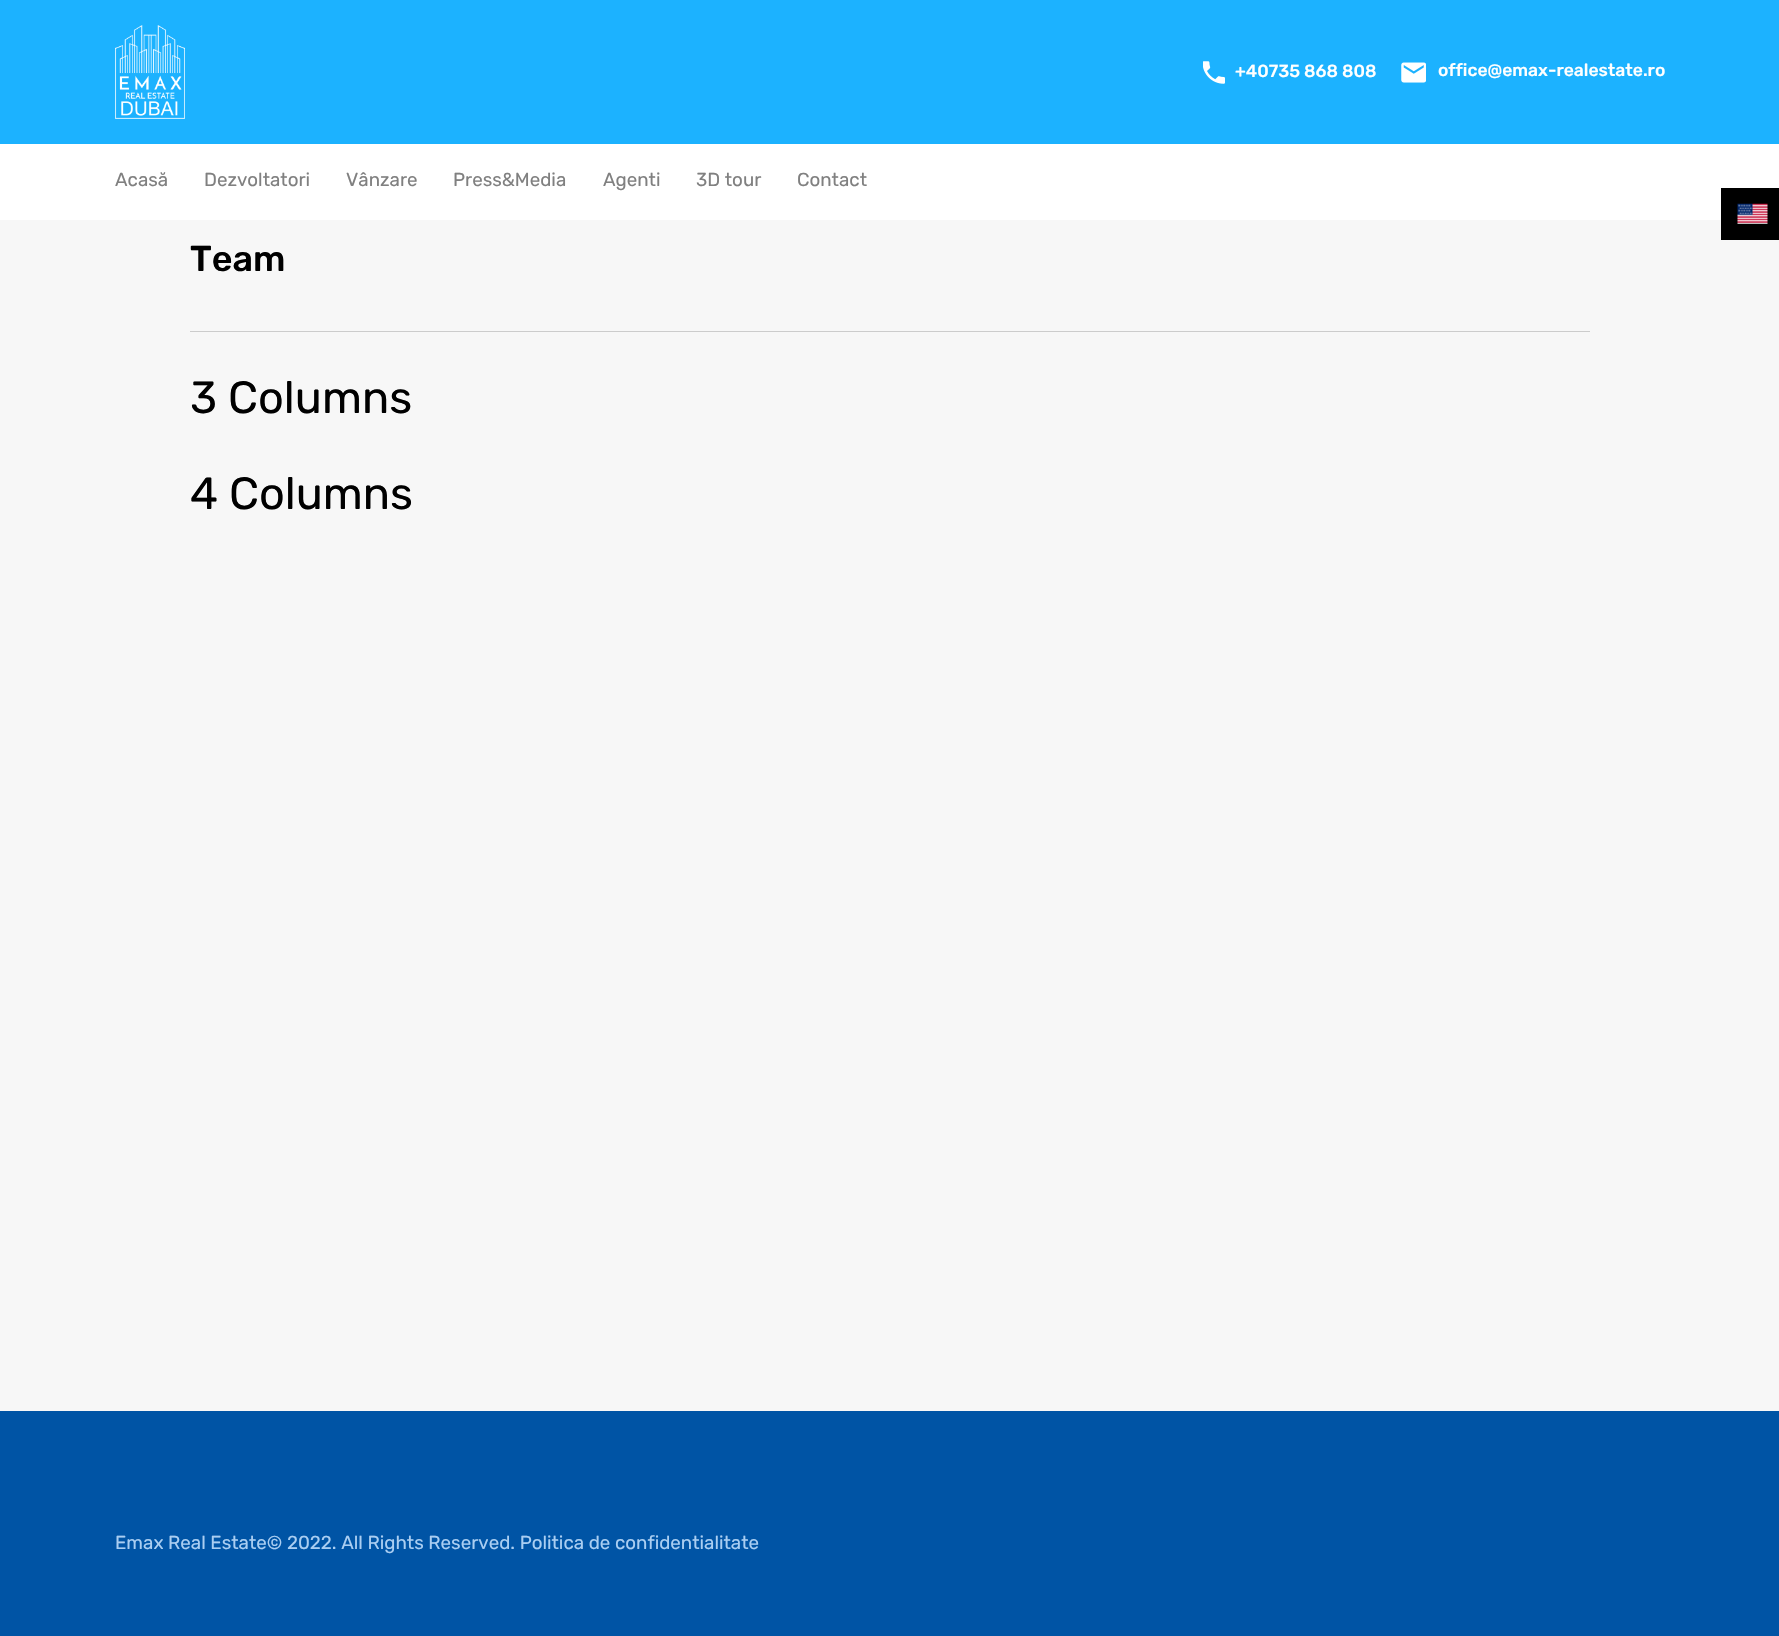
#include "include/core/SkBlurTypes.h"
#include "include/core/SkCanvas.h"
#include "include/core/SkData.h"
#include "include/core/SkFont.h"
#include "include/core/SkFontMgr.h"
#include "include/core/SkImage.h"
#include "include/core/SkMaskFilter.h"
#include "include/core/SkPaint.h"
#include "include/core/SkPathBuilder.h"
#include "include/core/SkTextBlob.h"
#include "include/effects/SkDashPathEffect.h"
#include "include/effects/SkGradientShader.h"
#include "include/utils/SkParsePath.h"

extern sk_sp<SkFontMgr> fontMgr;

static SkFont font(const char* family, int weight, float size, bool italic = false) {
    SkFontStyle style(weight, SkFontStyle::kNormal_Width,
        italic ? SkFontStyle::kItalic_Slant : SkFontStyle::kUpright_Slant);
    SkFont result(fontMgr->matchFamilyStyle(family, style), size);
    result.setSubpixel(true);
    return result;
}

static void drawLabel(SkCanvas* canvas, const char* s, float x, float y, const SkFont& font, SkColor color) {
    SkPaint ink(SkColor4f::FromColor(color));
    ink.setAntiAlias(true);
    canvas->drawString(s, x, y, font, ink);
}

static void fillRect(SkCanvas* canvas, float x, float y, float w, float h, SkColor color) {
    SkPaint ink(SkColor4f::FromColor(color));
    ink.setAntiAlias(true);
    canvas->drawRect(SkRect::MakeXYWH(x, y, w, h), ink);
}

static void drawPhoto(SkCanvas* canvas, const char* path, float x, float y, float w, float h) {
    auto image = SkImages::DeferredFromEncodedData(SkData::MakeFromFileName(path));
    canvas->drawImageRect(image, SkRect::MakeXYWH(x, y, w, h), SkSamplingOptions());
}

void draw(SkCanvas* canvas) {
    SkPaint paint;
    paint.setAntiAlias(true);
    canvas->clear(0xFFF7F7F7);
    fillRect(canvas, 0, 0, 1779, 144, 0xFF1CB2FF);
    drawPhoto(canvas, "assets/img1.png", 115, 25, 70, 94);
    drawPhoto(canvas, "assets/img2.png", 1203, 61, 22, 23);
    SkFont font1 = font("Rubik", 500, 17.5f);
    drawLabel(canvas, "+40735 868 808", 1235, 77, font1, 0xFFFFFFFF);
    drawPhoto(canvas, "assets/img3.png", 1401, 62, 25, 21);
    drawLabel(canvas, "office@emax-realestate.ro", 1438, 76, font1, 0xFFFFFFFF);
    fillRect(canvas, 0, 144, 1779, 76, 0xFFFFFFFF);
    SkFont font2 = font("Rubik", 400, 18.75f);
    drawLabel(canvas, "Acasă", 115, 186, font2, 0xFF808080);
    drawLabel(canvas, "Dezvoltatori", 204, 186, font2, 0xFF808080);
    drawLabel(canvas, "Vânzare", 346, 186, font2, 0xFF808080);
    drawLabel(canvas, "Press&Media", 453, 186, font2, 0xFF808080);
    drawLabel(canvas, "Agenti", 603, 186, font2, 0xFF808080);
    drawLabel(canvas, "3D tour", 696, 186, font2, 0xFF808080);
    drawLabel(canvas, "Contact", 797, 186, font2, 0xFF808080);
    SkFont font3 = font("Rubik", 500, 36);
    drawLabel(canvas, "Team", 190, 271, font3, 0xFF000000);
    fillRect(canvas, 190, 331, 1400, 1, 0xFFCCCCCC);
    SkFont font4 = font("Rubik", 400, 45);
    drawLabel(canvas, "3 Columns", 190, 413, font4, 0xFF000000);
    drawLabel(canvas, "4 Columns", 190, 509, font4, 0xFF000000);
    fillRect(canvas, 0, 1411, 1779, 225, 0xFF0054A5);
    drawLabel(canvas, "Emax Real Estate© 2022. All Rights Reserved. Politica de confidentialitate", 115, 1549, font2, 0xFFAACEF2);
    fillRect(canvas, 1721, 188, 58, 52, 0xFF000000);
    drawPhoto(canvas, "assets/img4.png", 1737, 203, 31, 21);
}
